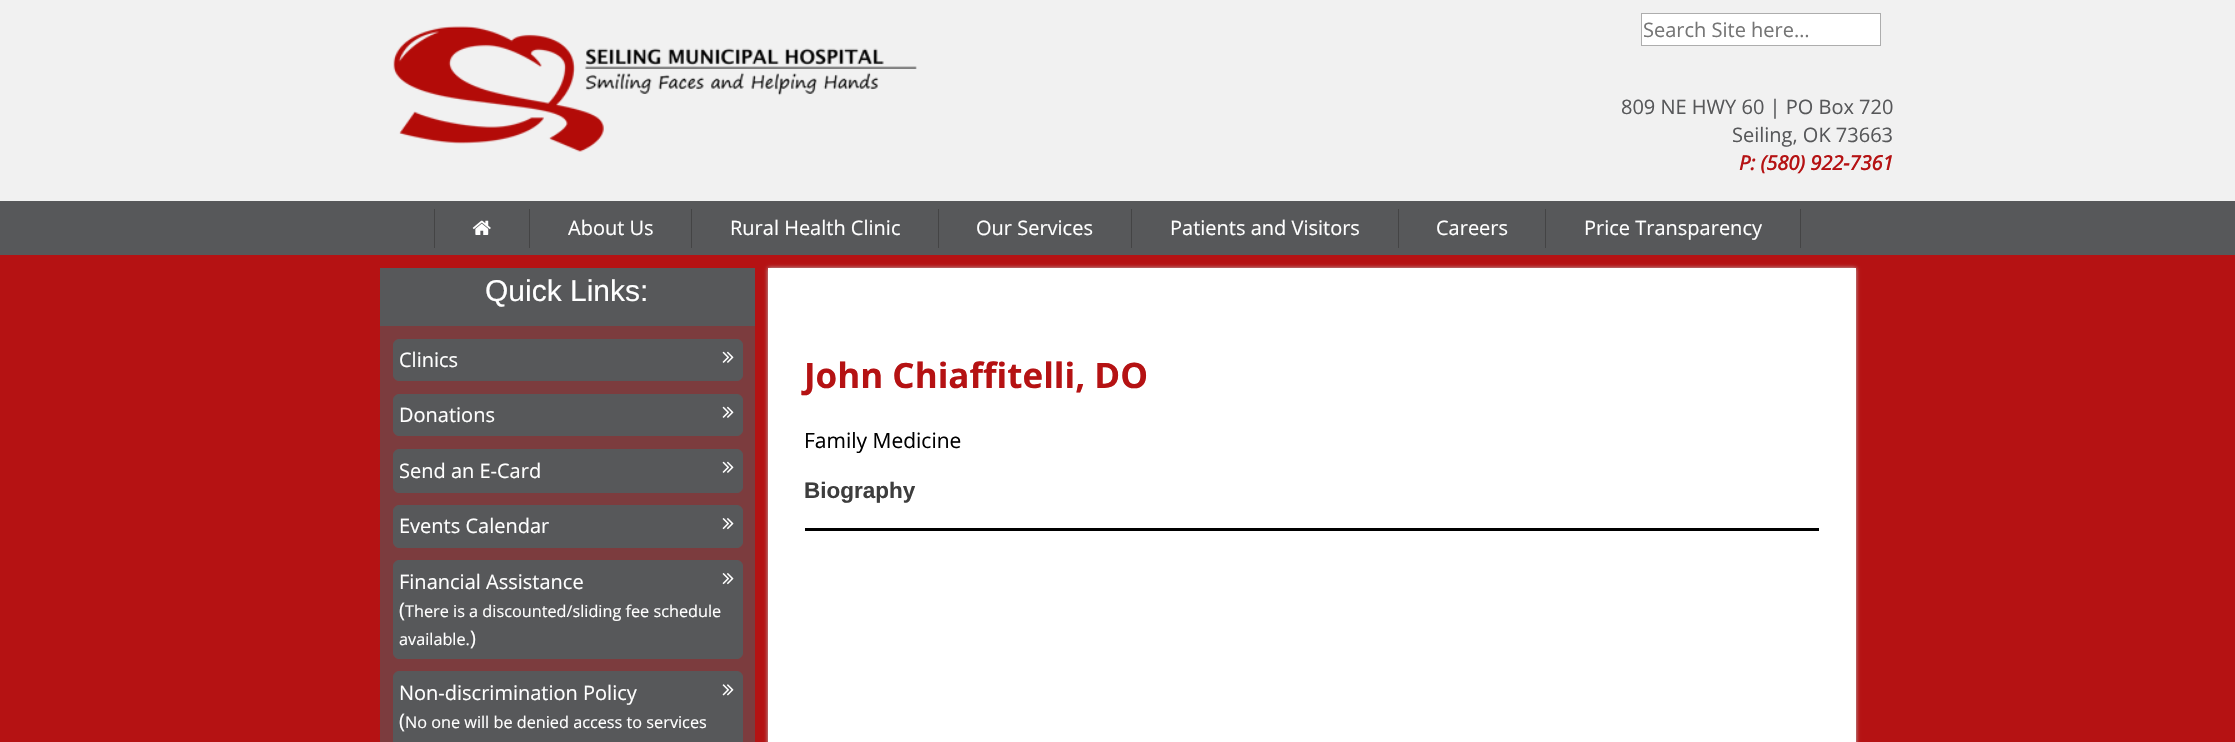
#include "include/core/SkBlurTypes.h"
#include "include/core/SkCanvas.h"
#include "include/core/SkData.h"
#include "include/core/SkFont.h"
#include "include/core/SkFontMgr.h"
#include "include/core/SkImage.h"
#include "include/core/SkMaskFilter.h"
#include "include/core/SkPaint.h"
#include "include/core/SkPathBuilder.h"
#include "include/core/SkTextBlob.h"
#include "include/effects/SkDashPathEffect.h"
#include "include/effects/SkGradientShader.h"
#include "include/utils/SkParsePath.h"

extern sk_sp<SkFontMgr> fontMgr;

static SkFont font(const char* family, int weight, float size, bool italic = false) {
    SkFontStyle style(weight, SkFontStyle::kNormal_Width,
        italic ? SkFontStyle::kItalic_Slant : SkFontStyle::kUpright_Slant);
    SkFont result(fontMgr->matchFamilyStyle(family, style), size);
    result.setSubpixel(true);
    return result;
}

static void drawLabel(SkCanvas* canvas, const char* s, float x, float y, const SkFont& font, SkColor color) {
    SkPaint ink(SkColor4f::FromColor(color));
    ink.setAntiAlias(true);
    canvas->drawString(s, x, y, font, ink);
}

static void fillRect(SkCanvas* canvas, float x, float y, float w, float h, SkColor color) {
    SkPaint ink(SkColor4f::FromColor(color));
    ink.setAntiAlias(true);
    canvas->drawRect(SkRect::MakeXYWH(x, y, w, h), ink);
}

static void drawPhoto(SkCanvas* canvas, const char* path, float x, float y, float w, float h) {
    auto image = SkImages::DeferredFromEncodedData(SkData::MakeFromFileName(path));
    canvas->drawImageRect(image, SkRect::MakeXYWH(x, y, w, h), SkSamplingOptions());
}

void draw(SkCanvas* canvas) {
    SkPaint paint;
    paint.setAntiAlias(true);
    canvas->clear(0xFFB51213);
    fillRect(canvas, 0, 0, 2235, 201, 0xFFF1F1F1);
    drawPhoto(canvas, "assets/img1.png", 393, 26, 524, 126);
    paint.setColor(0xFFFFFFFF);
    canvas->drawRect(SkRect::MakeXYWH(1641.5f, 13.5f, 239, 32), paint);
    paint.setStroke(true);
    paint.setStrokeWidth(1);
    paint.setColor(0xFFADADAD);
    canvas->drawRect(SkRect::MakeXYWH(1641.5f, 13.5f, 239, 32), paint);
    SkFont font1 = font("Open Sans", 400, 20);
    drawLabel(canvas, "Search Site here…", 1643, 37, font1, 0xFF757575);
    drawLabel(canvas, "809 NE HWY 60 | PO Box 720", 1621, 114, font1, 0xFF57585A);
    drawLabel(canvas, "Seiling, OK 73663", 1732, 142, font1, 0xFF57585A);
    SkFont font2 = font("Open Sans", 700, 20, true);
    drawLabel(canvas, "P: (580) 922-7361", 1739, 170, font2, 0xFFB51213);
    fillRect(canvas, 0, 201, 2235, 54, 0xFF57585A);
    fillRect(canvas, 434, 209, 1, 39, 0xFF444445);
    drawPhoto(canvas, "assets/img2.png", 472, 220, 19, 15);
    fillRect(canvas, 529, 209, 1, 39, 0xFF444445);
    drawLabel(canvas, "About Us", 568, 235, font1, 0xFFFFFFFF);
    fillRect(canvas, 691, 209, 1, 39, 0xFF444445);
    drawLabel(canvas, "Rural Health Clinic", 730, 235, font1, 0xFFFFFFFF);
    fillRect(canvas, 938, 209, 1, 39, 0xFF444445);
    drawLabel(canvas, "Our Services", 976, 235, font1, 0xFFFFFFFF);
    fillRect(canvas, 1131, 209, 1, 39, 0xFF444445);
    drawLabel(canvas, "Patients and Visitors", 1170, 235, font1, 0xFFFFFFFF);
    fillRect(canvas, 1398, 209, 1, 39, 0xFF444445);
    drawLabel(canvas, "Careers", 1436, 235, font1, 0xFFFFFFFF);
    fillRect(canvas, 1800, 209, 1, 39, 0xFF444445);
    fillRect(canvas, 1545, 209, 1, 39, 0xFF444445);
    drawLabel(canvas, "Price Transparency", 1584, 235, font1, 0xFFFFFFFF);
    fillRect(canvas, 380, 326, 375, 416, 0xFF7C3C3E);
    fillRect(canvas, 380, 268, 375, 58, 0xFF57585A);
    SkFont font3 = font("Liberation Sans", 400, 30);
    drawLabel(canvas, "Quick Links:", 485, 301, font3, 0xFFFFFFFF);
    paint.setStroke(false);
    paint.setColor(0xFF57585A);
    canvas->drawRoundRect(SkRect::MakeXYWH(393.5f, 339.5f, 349, 41), 5.5f, 5.5f, paint);
    paint.setStroke(true);
    canvas->drawRoundRect(SkRect::MakeXYWH(393.5f, 339.5f, 349, 41), 5.5f, 5.5f, paint);
    drawLabel(canvas, "Clinics", 399, 367, font1, 0xFFFFFFFF);
    drawPhoto(canvas, "assets/img3.png", 722, 351, 12, 12);
    paint.setStroke(false);
    canvas->drawRoundRect(SkRect::MakeXYWH(393.5f, 394.5f, 349, 41), 5.5f, 5.5f, paint);
    paint.setStroke(true);
    canvas->drawRoundRect(SkRect::MakeXYWH(393.5f, 394.5f, 349, 41), 5.5f, 5.5f, paint);
    drawLabel(canvas, "Donations", 399, 422, font1, 0xFFFFFFFF);
    drawPhoto(canvas, "assets/img3.png", 722, 406, 12, 12);
    paint.setStroke(false);
    canvas->drawRoundRect(SkRect::MakeXYWH(393.5f, 449.5f, 349, 43), 5.5f, 5.5f, paint);
    paint.setStroke(true);
    canvas->drawRoundRect(SkRect::MakeXYWH(393.5f, 449.5f, 349, 43), 5.5f, 5.5f, paint);
    drawLabel(canvas, "Send an E-Card", 399, 478, font1, 0xFFFFFFFF);
    drawPhoto(canvas, "assets/img3.png", 722, 461, 12, 12);
    paint.setStroke(false);
    canvas->drawRoundRect(SkRect::MakeXYWH(393.5f, 505.5f, 349, 42), 5.5f, 5.5f, paint);
    paint.setStroke(true);
    canvas->drawRoundRect(SkRect::MakeXYWH(393.5f, 505.5f, 349, 42), 5.5f, 5.5f, paint);
    drawLabel(canvas, "Events Calendar", 399, 533, font1, 0xFFFFFFFF);
    drawPhoto(canvas, "assets/img4.png", 722, 518, 12, 12);
    paint.setStroke(false);
    canvas->drawRoundRect(SkRect::MakeXYWH(393.5f, 560.5f, 349, 98), 5.5f, 5.5f, paint);
    paint.setStroke(true);
    canvas->drawRoundRect(SkRect::MakeXYWH(393.5f, 560.5f, 349, 98), 5.5f, 5.5f, paint);
    drawLabel(canvas, "Financial Assistance", 399, 589, font1, 0xFFFFFFFF);
    drawPhoto(canvas, "assets/img4.png", 722, 573, 12, 12);
    drawLabel(canvas, "(", 399, 617, font1, 0xFFFFFFFF);
    SkFont font4 = font("Open Sans", 400, 16.25f);
    drawLabel(canvas, "There is a discounted/sliding fee schedule", 405, 617, font4, 0xFFFFFFFF);
    drawLabel(canvas, "available.", 399, 645, font4, 0xFFFFFFFF);
    drawLabel(canvas, ")", 470, 645, font1, 0xFFFFFFFF);
    paint.setStroke(false);
    canvas->drawRoundRect(SkRect::MakeXYWH(393.5f, 671.5f, 349, 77), 5.5f, 5.5f, paint);
    paint.setStroke(true);
    canvas->drawRoundRect(SkRect::MakeXYWH(393.5f, 671.5f, 349, 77), 5.5f, 5.5f, paint);
    drawLabel(canvas, "Non-discrimination Policy", 399, 700, font1, 0xFFFFFFFF);
    drawPhoto(canvas, "assets/img5.png", 722, 684, 12, 12);
    drawLabel(canvas, "(", 399, 728, font1, 0xFFFFFFFF);
    drawLabel(canvas, "No one will be denied access to services", 405, 728, font4, 0xFFFFFFFF);
    paint.setStroke(false);
    paint.setColor(0xFFBBBEBF);
    paint.setMaskFilter(SkMaskFilter::MakeBlur(kNormal_SkBlurStyle, 2));
    canvas->drawRect(SkRect::MakeXYWH(768, 268, 1088, 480), paint);
    paint.setMaskFilter(nullptr);
    fillRect(canvas, 768, 268, 1088, 474, 0xFFFFFFFF);
    SkFont font5 = font("Open Sans", 700, 35);
    drawLabel(canvas, "John Chiaffitelli, DO", 804, 388, font5, 0xFFB51213);
    SkFont font6 = font("Open Sans", 400, 21);
    drawLabel(canvas, "Family Medicine", 804, 448, font6, 0xFF000000);
    SkFont font7 = font("Liberation Sans", 700, 22.5f);
    drawLabel(canvas, "Biography", 804, 498, font7, 0xFF3D3D3D);
    fillRect(canvas, 805, 528, 1014, 3, 0xFF000000);
}
